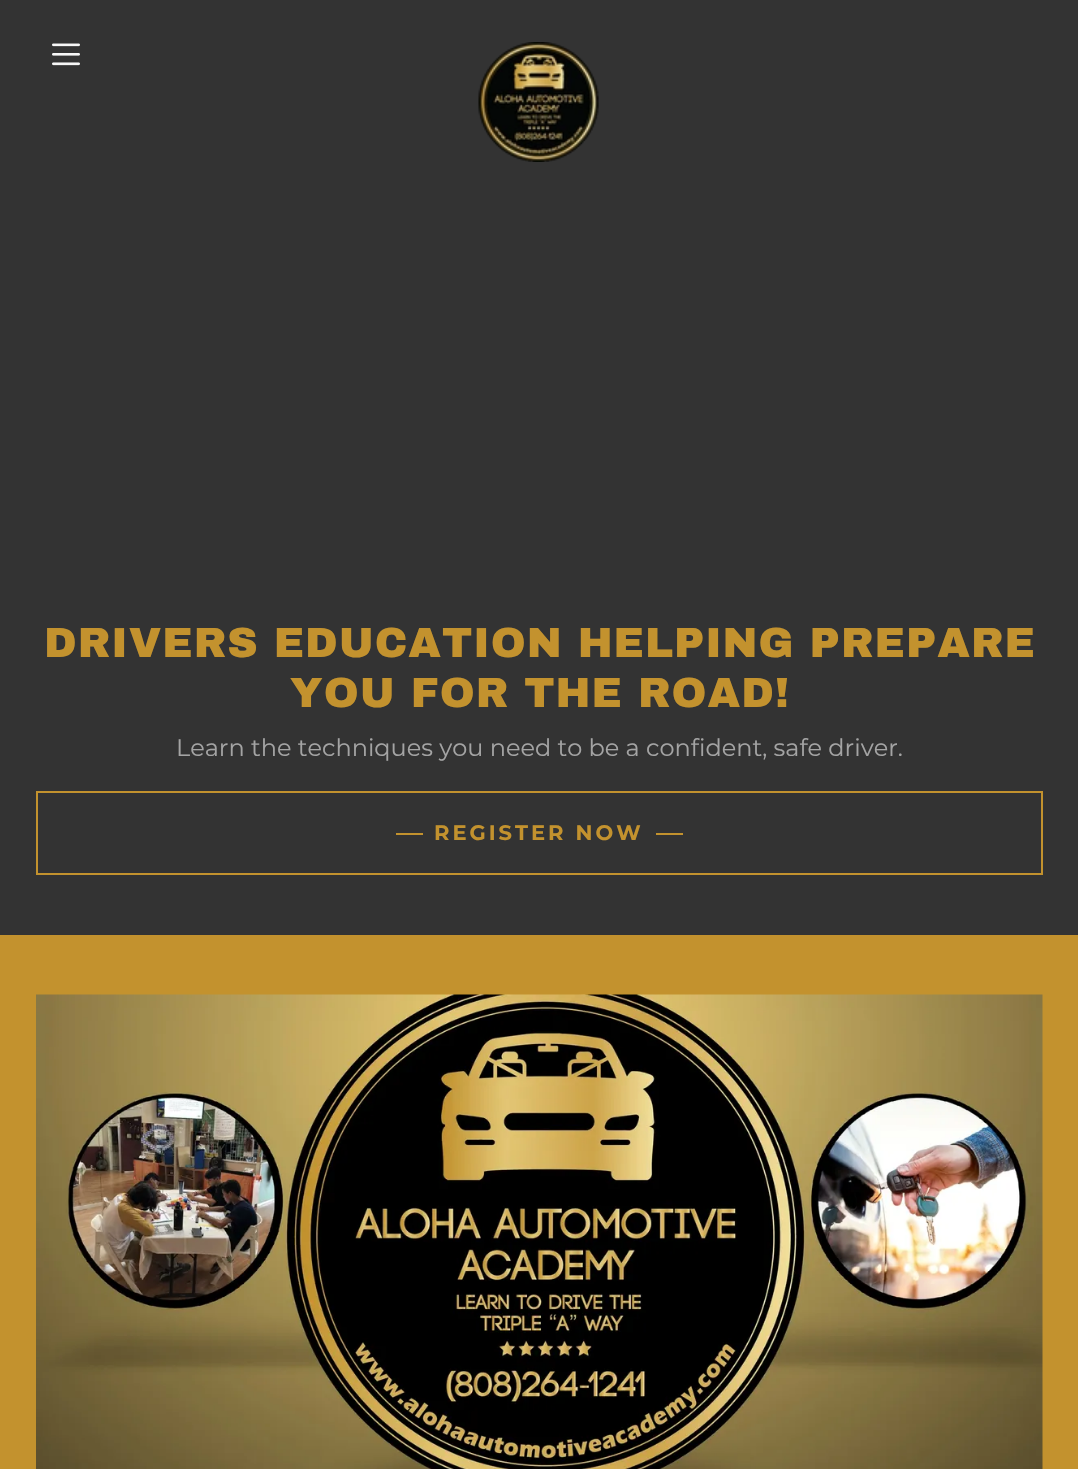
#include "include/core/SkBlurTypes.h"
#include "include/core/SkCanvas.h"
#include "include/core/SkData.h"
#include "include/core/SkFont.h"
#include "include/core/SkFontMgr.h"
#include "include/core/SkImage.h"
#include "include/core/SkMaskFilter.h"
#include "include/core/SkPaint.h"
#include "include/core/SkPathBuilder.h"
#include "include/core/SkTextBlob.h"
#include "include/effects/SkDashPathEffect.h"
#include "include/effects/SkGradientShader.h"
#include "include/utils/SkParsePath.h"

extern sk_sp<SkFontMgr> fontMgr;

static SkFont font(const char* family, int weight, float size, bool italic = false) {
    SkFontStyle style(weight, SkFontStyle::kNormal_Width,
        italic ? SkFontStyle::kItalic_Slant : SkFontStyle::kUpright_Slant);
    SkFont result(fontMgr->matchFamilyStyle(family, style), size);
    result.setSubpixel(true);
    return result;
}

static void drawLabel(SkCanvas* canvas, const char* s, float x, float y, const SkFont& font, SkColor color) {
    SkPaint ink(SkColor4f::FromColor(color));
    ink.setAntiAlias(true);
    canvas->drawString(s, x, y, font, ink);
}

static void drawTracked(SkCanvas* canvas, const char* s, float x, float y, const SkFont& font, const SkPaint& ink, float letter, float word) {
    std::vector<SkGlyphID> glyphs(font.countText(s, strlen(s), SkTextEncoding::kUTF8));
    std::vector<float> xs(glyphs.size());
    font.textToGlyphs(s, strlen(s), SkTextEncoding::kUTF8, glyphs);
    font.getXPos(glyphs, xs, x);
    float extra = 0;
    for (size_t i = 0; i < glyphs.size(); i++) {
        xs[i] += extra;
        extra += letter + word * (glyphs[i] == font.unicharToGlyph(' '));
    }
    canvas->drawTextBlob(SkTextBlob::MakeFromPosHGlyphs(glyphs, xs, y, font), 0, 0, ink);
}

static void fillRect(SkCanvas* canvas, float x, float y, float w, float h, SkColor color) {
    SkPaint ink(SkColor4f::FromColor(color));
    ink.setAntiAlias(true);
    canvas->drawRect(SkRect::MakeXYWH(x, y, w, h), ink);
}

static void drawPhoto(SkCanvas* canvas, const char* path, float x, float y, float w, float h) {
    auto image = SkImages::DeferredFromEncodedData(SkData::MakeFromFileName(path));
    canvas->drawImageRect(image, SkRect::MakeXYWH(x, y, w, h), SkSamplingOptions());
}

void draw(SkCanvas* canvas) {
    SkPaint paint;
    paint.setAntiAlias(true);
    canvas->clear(0xFF333333);
    drawPhoto(canvas, "assets/img1.png", 52, 43, 28, 23);
    drawPhoto(canvas, "assets/img2.png", 478, 42, 121, 120);
    SkFont font1 = font("Archivo Black", 900, 42);
    paint.setColor(0xFFC3922E);
    drawTracked(canvas, "DRIVERS EDUCATION HELPING PREPARE", 44, 657, font1, paint, 1, 0);
    drawTracked(canvas, "YOU FOR THE ROAD!", 290, 707, font1, paint, 1, 0);
    SkFont font2 = font("Montserrat", 400, 24);
    drawLabel(canvas, "Learn the techniques you need to be a confident, safe driver.", 176, 756, font2, 0xFFA4A4A4);
    paint.setStroke(true);
    paint.setStrokeWidth(2);
    canvas->drawRect(SkRect::MakeXYWH(37, 792, 1005, 82), paint);
    fillRect(canvas, 396, 833, 27, 2, 0xFFC3922E);
    SkFont font3 = font("Montserrat", 700, 21);
    paint.setStroke(false);
    drawTracked(canvas, "REGISTER NOW", 434, 840, font3, paint, 3, 0);
    fillRect(canvas, 656, 833, 27, 2, 0xFFC3922E);
    fillRect(canvas, 0, 935, 1078, 534, 0xFFC3922E);
    drawPhoto(canvas, "assets/img3.png", 36, 994, 1007, 475);
}
